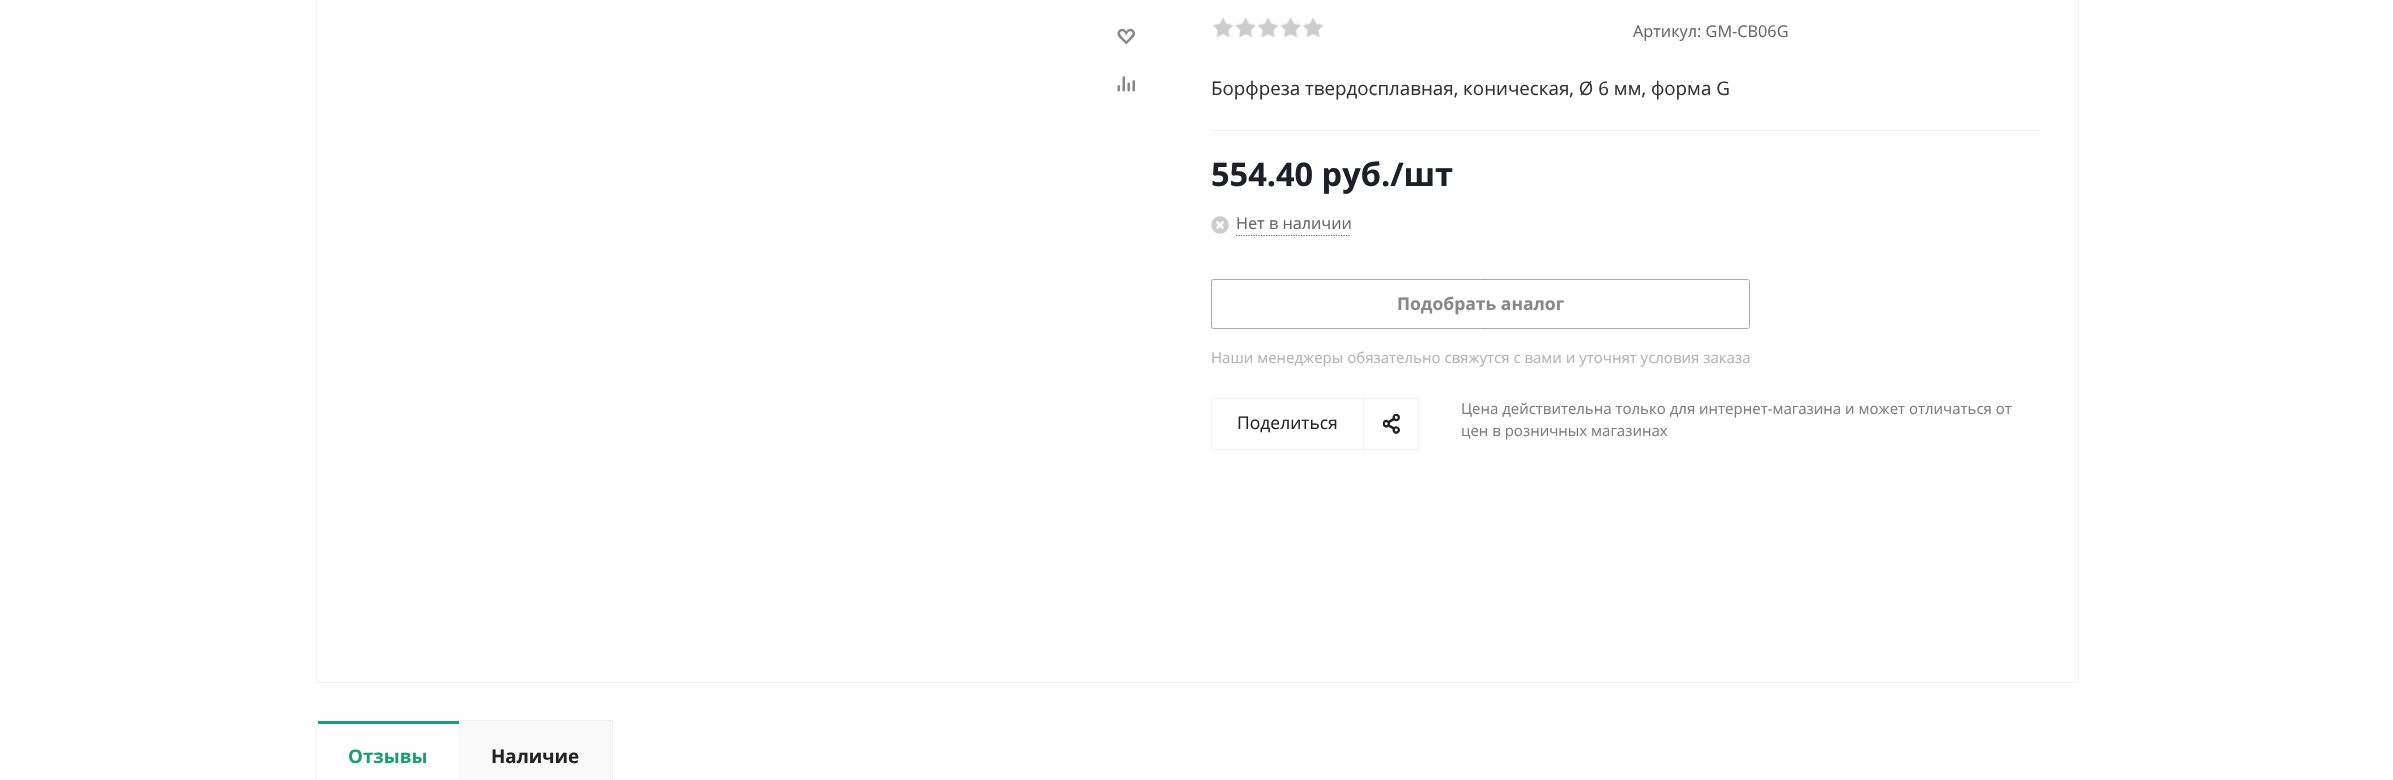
#include "include/core/SkBlurTypes.h"
#include "include/core/SkCanvas.h"
#include "include/core/SkData.h"
#include "include/core/SkFont.h"
#include "include/core/SkFontMgr.h"
#include "include/core/SkImage.h"
#include "include/core/SkMaskFilter.h"
#include "include/core/SkPaint.h"
#include "include/core/SkPathBuilder.h"
#include "include/core/SkTextBlob.h"
#include "include/effects/SkDashPathEffect.h"
#include "include/effects/SkGradientShader.h"
#include "include/utils/SkParsePath.h"

extern sk_sp<SkFontMgr> fontMgr;

static SkFont font(const char* family, int weight, float size, bool italic = false) {
    SkFontStyle style(weight, SkFontStyle::kNormal_Width,
        italic ? SkFontStyle::kItalic_Slant : SkFontStyle::kUpright_Slant);
    SkFont result(fontMgr->matchFamilyStyle(family, style), size);
    result.setSubpixel(true);
    return result;
}

static void drawLabel(SkCanvas* canvas, const char* s, float x, float y, const SkFont& font, SkColor color) {
    SkPaint ink(SkColor4f::FromColor(color));
    ink.setAntiAlias(true);
    canvas->drawString(s, x, y, font, ink);
}

static void fillRect(SkCanvas* canvas, float x, float y, float w, float h, SkColor color) {
    SkPaint ink(SkColor4f::FromColor(color));
    ink.setAntiAlias(true);
    canvas->drawRect(SkRect::MakeXYWH(x, y, w, h), ink);
}

static void drawPhoto(SkCanvas* canvas, const char* path, float x, float y, float w, float h) {
    auto image = SkImages::DeferredFromEncodedData(SkData::MakeFromFileName(path));
    canvas->drawImageRect(image, SkRect::MakeXYWH(x, y, w, h), SkSamplingOptions());
}

static SkPath parsePath(const char* data, bool evenOdd = false) {
    SkPath result = *SkParsePath::FromSVGString(data);
    if (evenOdd) result.setFillType(SkPathFillType::kEvenOdd);
    return result;
}

void draw(SkCanvas* canvas) {
    SkPaint paint;
    paint.setAntiAlias(true);
    canvas->clear(0xFFFFFFFF);
    paint.setStroke(true);
    paint.setStrokeWidth(1);
    paint.setColor(0xFFF2F2F2);
    canvas->drawRect(SkRect::MakeXYWH(316.5f, -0.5f, 1762, 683), paint);
    drawPhoto(canvas, "assets/img1.png", 1117, 28, 18, 17);
    drawPhoto(canvas, "assets/img2.png", 1117, 76, 18, 16);
    fillRect(canvas, 1211, 130, 829, 1, 0xFFF2F2F2);
    drawPhoto(canvas, "assets/img3.png", 1212, 17, 22, 21);
    drawPhoto(canvas, "assets/img4.png", 1235, 17, 21, 21);
    drawPhoto(canvas, "assets/img5.png", 1257, 17, 22, 21);
    drawPhoto(canvas, "assets/img6.png", 1280, 17, 21, 21);
    drawPhoto(canvas, "assets/img3.png", 1302, 17, 22, 21);
    SkFont font1 = font("Open Sans", 400, 16.25f);
    drawLabel(canvas, "Артикул: GM-CB06G", 1633, 37, font1, 0xFF666666);
    SkFont font2 = font("Open Sans", 400, 18.75f);
    drawLabel(canvas, "Борфреза твердосплавная, коническая, Ø 6 мм, форма G", 1211, 95, font2, 0xFF333333);
    SkFont font3 = font("Open Sans", 700, 32.5f);
    drawLabel(canvas, "554.40 руб./шт", 1211, 186, font3, 0xFF1D2029);
    drawPhoto(canvas, "assets/img7.png", 1211, 216, 18, 18);
    drawLabel(canvas, "Нет в наличии", 1236, 229, font1, 0xFF666666);
    paint.setStrokeWidth(1.2f);
    paint.setColor(0xFF666666);
    paint.setPathEffect(SkDashPathEffect::Make({{1.25f, 1.25f}}, 0));
    canvas->drawPath(parsePath("M1236 235.5H1351"), paint);
    paint.setPathEffect(nullptr);
    paint.setStrokeWidth(1);
    paint.setColor(0xFFAAAAAA);
    canvas->drawRoundRect(SkRect::MakeXYWH(1211.5f, 279.5f, 538, 49), 2, 2, paint);
    SkFont font4 = font("Open Sans", 700, 17.5f);
    drawLabel(canvas, "Подобрать аналог", 1397, 310, font4, 0xFF888888);
    SkFont font5 = font("Open Sans", 400, 15);
    drawLabel(canvas, "Наши менеджеры обязательно свяжутся с вами и уточнят условия заказа", 1211, 363, font5, 0xFFB3B3B3);
    fillRect(canvas, 1363, 398, 1, 52, 0xFFF2F2F2);
    drawPhoto(canvas, "assets/img8.png", 1383, 414, 17, 20);
    paint.setColor(0xFFF2F2F2);
    canvas->drawRoundRect(SkRect::MakeXYWH(1211.5f, 398.5f, 207, 51), 2, 2, paint);
    SkFont font6 = font("Open Sans", 400, 17.5f);
    drawLabel(canvas, "Поделиться", 1237, 429, font6, 0xFF222222);
    drawLabel(canvas, "Цена действительна только для интернет-магазина и может отличаться от", 1461, 414, font5, 0xFF7D7D7D);
    drawLabel(canvas, "цен в розничных магазинах", 1461, 436, font5, 0xFF7D7D7D);
    paint.setStroke(false);
    paint.setColor(0xFFF9F9FA);
    canvas->drawRect(SkRect::MakeXYWH(459.5f, 720.5f, 153, 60), paint);
    paint.setStroke(true);
    paint.setColor(0xFFF2F2F2);
    canvas->drawRect(SkRect::MakeXYWH(459.5f, 720.5f, 153, 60), paint);
    fillRect(canvas, 316, 720, 144, 1, 0xFFF5F5F5);
    fillRect(canvas, 459, 720, 1, 60, 0xFFF5F5F5);
    fillRect(canvas, 316, 720, 1, 60, 0xFFF5F5F5);
    fillRect(canvas, 318, 721, 141, 3, 0xFF1B9E77);
    SkFont font7 = font("Open Sans", 700, 18.75f);
    drawLabel(canvas, "Отзывы", 348, 763, font7, 0xFF1B9E77);
    drawLabel(canvas, "Наличие", 491, 763, font7, 0xFF222222);
}
